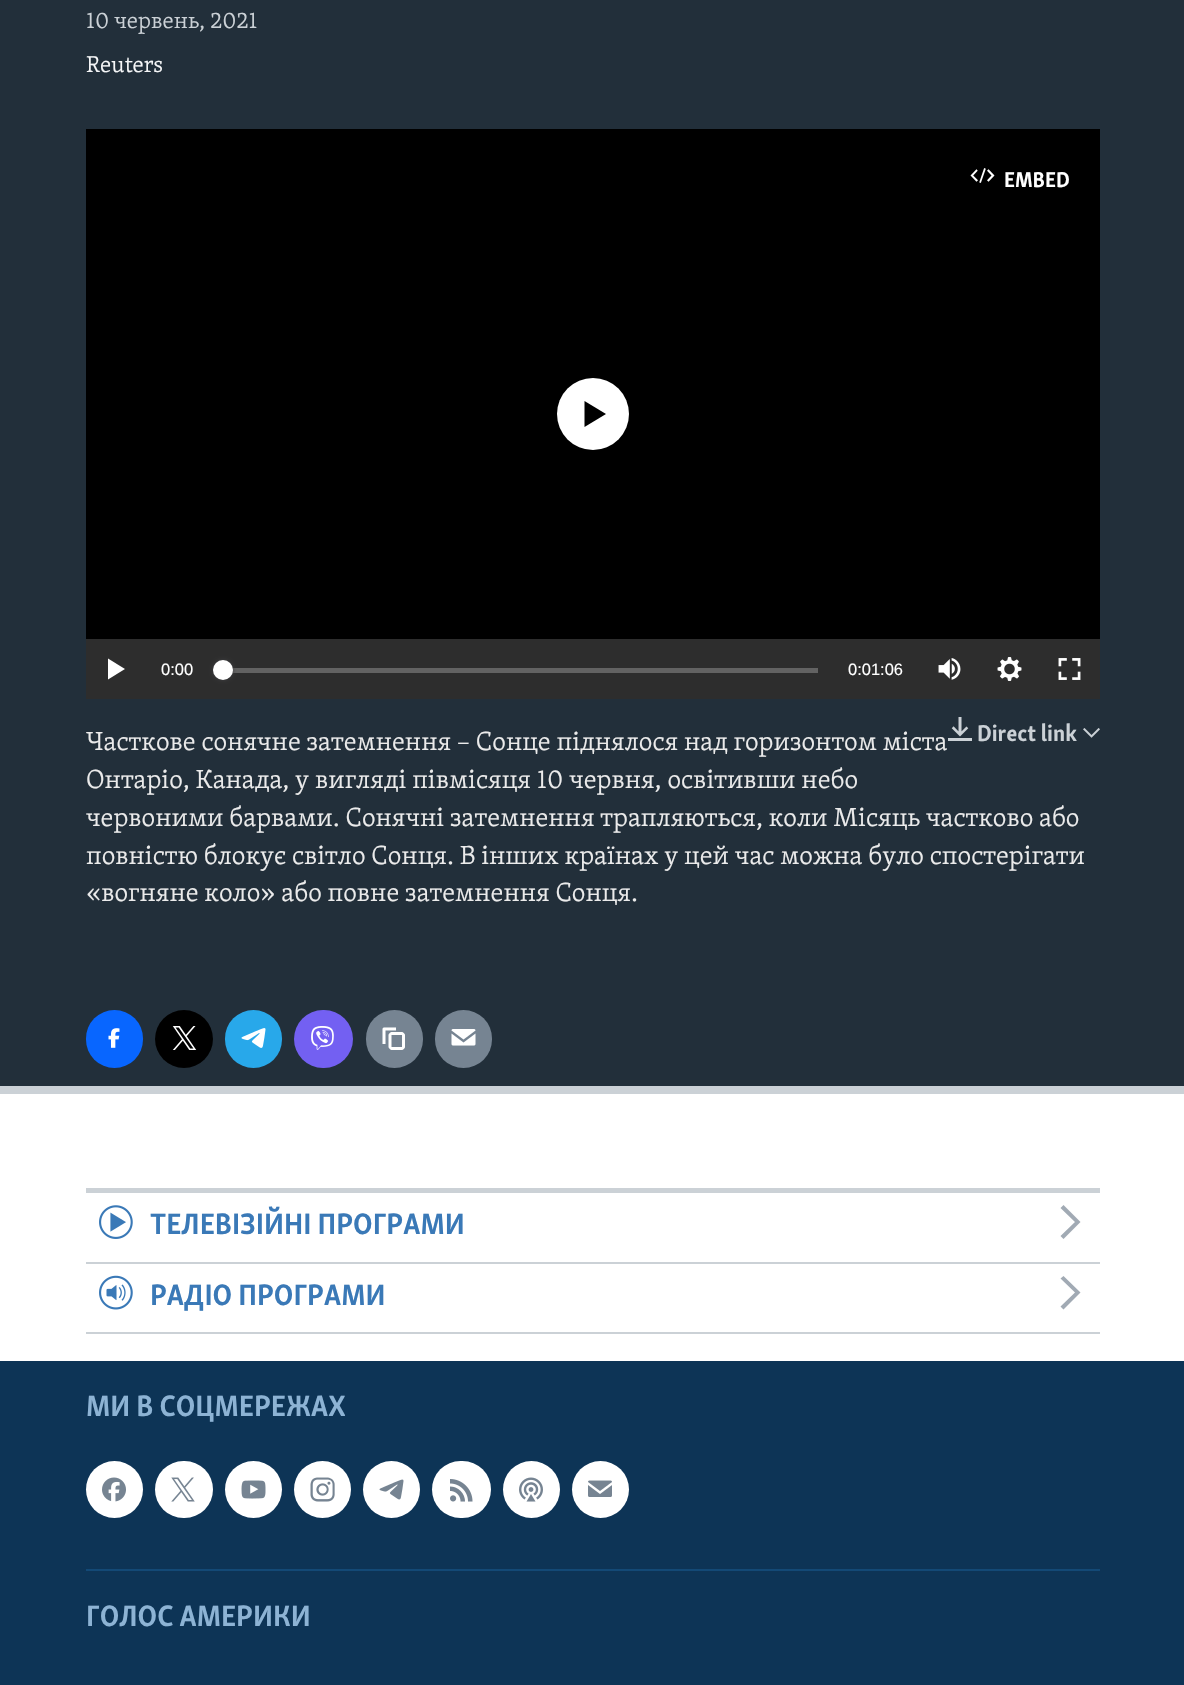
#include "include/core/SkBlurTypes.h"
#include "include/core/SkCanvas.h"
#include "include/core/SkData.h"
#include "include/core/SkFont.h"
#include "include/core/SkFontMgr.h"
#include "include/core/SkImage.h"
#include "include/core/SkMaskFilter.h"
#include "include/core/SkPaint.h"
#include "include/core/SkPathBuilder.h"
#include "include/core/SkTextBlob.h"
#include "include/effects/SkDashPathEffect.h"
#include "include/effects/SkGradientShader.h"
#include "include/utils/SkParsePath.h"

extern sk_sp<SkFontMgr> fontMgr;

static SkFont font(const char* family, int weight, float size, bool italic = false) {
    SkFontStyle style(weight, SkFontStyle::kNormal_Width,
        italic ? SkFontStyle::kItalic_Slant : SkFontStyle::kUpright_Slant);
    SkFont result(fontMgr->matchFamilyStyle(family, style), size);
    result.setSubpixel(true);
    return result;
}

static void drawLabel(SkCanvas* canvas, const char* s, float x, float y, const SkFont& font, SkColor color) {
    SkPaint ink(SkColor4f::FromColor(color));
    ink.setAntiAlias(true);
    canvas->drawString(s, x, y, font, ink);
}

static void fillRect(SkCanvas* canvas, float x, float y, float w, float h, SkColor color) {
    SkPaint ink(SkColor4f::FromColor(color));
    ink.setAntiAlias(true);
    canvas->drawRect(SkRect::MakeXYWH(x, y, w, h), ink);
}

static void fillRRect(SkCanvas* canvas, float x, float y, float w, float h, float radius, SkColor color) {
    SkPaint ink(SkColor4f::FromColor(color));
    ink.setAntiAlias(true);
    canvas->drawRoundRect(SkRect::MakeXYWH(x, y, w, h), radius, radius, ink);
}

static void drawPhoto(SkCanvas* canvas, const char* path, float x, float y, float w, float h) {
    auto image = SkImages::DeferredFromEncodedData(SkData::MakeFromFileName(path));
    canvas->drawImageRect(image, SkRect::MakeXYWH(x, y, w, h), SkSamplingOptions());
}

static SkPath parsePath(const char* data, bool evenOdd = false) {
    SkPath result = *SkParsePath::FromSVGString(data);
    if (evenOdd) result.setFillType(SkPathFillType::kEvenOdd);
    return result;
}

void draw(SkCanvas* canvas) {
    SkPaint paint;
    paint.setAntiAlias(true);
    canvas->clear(0xFFFFFFFF);
    fillRect(canvas, 0, 0, 1184, 1086, 0xFF222F3A);
    fillRect(canvas, 0, 1086, 1184, 8, 0xFFCBD1D6);
    SkFont font1 = font("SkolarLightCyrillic", 300, 23.5f);
    drawLabel(canvas, "10 червень, 2021", 86, 28, font1, 0xFFCBD1D6);
    drawLabel(canvas, "Reuters", 86, 72, font1, 0xFFF6F7F8);
    fillRect(canvas, 86, 129, 1014, 510, 0xFF000000);
    drawPhoto(canvas, "assets/img1.png", 970, 168, 25, 15);
    SkFont font2 = font("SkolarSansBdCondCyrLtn", 700, 22);
    drawLabel(canvas, "EMBED", 1004, 187, font2, 0xFFFFFFFF);
    paint.setColor(0xFFFFFFFF);
    canvas->drawCircle(593, 414, 36, paint);
    paint.setColor(0xFF000000);
    canvas->drawPath(parsePath("M584.5 427L606 414L584.5 401Z"), paint);
    fillRect(canvas, 86, 639, 1014, 60, 0xFF2D2D2D);
    paint.setColor(0xFFFFFFFF);
    canvas->drawPath(parsePath("M108 679.5L125 669L108 658.5Z"), paint);
    SkFont font3 = font("Liberation Sans", 400, 16.5f);
    drawLabel(canvas, "0:00", 161, 675, font3, 0xFFFFFFFF);
    fillRect(canvas, 232, 668, 586, 5, 0xFF626262);
    paint.setColor(0xFF414144);
    paint.setMaskFilter(SkMaskFilter::MakeBlur(kNormal_SkBlurStyle, 2));
    canvas->drawRoundRect(SkRect::MakeXYWH(213, 660, 20, 20), 10, 10, paint);
    paint.setMaskFilter(nullptr);
    paint.setColor(0xFFFFFFFF);
    canvas->drawCircle(223, 670, 10, paint);
    drawLabel(canvas, "0:01:06", 848, 675, font3, 0xFFFFFFFF);
    drawPhoto(canvas, "assets/img2.png", 938, 658, 23, 22);
    drawPhoto(canvas, "assets/img3.png", 997, 657, 25, 24);
    drawPhoto(canvas, "assets/img4.png", 1058, 658, 23, 22);
    drawPhoto(canvas, "assets/img5.png", 948, 717, 24, 24);
    SkFont font4 = font("SkolarSansBdCondCyrLtn", 700, 23.5f);
    drawLabel(canvas, "Direct link", 977, 741, font4, 0xFFCBD1D6);
    drawPhoto(canvas, "assets/img6.png", 1083, 728, 17, 10);
    SkFont font5 = font("SkolarLightCyrillic", 300, 27);
    drawLabel(canvas, "Часткове сонячне затемнення – Cонце піднялося над горизонтом міста", 86, 750, font5, 0xFFEBEBEB);
    drawLabel(canvas, "Онтаріо, Канада, у вигляді півмісяця 10 червня, освітивши небо", 86, 788, font5, 0xFFEBEBEB);
    drawLabel(canvas, "червоними барвами. Сонячні затемнення трапляються, коли Місяць частково або", 86, 826, font5, 0xFFEBEBEB);
    drawLabel(canvas, "повністю блокує світло Сонця. В інших країнах у цей час можна було спостерігати", 86, 864, font5, 0xFFEBEBEB);
    drawLabel(canvas, "«вогняне коло» або повне затемнення Сонця.", 86, 901, font5, 0xFFEBEBEB);
    fillRRect(canvas, 86, 1010, 57, 58, 28.5f, 0xFF0866FF);
    drawPhoto(canvas, "assets/img7.png", 108, 1028, 12, 20);
    paint.setColor(0xFF000000);
    canvas->drawCircle(184, 1039, 29, paint);
    drawPhoto(canvas, "assets/img8.png", 172, 1026, 25, 24);
    fillRRect(canvas, 225, 1010, 57, 58, 28.5f, 0xFF28A8EA);
    drawPhoto(canvas, "assets/img9.png", 241, 1028, 25, 20);
    fillRRect(canvas, 294, 1010, 59, 58, 29, 0xFF7360F2);
    drawPhoto(canvas, "assets/img10.png", 311, 1026, 23, 24);
    fillRRect(canvas, 366, 1010, 57, 58, 28.5f, 0xFF768492);
    drawPhoto(canvas, "assets/img11.png", 382, 1027, 23, 23);
    fillRRect(canvas, 435, 1010, 57, 58, 28.5f, 0xFF768492);
    drawPhoto(canvas, "assets/img12.png", 451, 1029, 25, 17);
    fillRect(canvas, 86, 1188, 1014, 5, 0xFFCBD1D6);
    fillRect(canvas, 86, 1262, 1014, 2, 0xFFCBD1D6);
    drawPhoto(canvas, "assets/img13.png", 99, 1205, 34, 34);
    SkFont font6 = font("SkolarSansBdCondCyrLtn", 700, 30.4f);
    drawLabel(canvas, "ТЕЛЕВІЗІЙНІ ПРОГРАМИ", 150, 1234, font6, 0xFF3A79B7);
    paint.setColor(0xFFA1AAB4);
    canvas->drawPath(parsePath("M1063.5 1239L1080.5 1222L1063.5 1205L1060.5 1208L1075 1222L1060.5 1236Z"), paint);
    fillRect(canvas, 86, 1332, 1014, 2, 0xFFCBD1D6);
    drawPhoto(canvas, "assets/img14.png", 99, 1275, 34, 35);
    drawLabel(canvas, "РАДІО ПРОГРАМИ", 150, 1305, font6, 0xFF3A79B7);
    canvas->drawPath(parsePath("M1063.5 1309.5L1080.5 1292.5L1063.5 1276L1060.5 1278.5L1075 1292.5L1060.5 1306.5Z"), paint);
    fillRect(canvas, 0, 1361, 1184, 324, 0xFF0D3456);
    drawLabel(canvas, "МИ В СОЦМЕРЕЖАХ", 86, 1416, font6, 0xFF8DB3D4);
    paint.setColor(0xFFFFFFFF);
    canvas->drawCircle(114.5f, 1489.5f, 28.5f, paint);
    drawPhoto(canvas, "assets/img15.png", 102, 1477, 24, 25);
    fillRRect(canvas, 155, 1461, 58, 57, 28.5f, 0xFFFFFFFF);
    drawPhoto(canvas, "assets/img16.png", 171, 1477, 24, 25);
    canvas->drawCircle(253.5f, 1489.5f, 28.5f, paint);
    drawPhoto(canvas, "assets/img17.png", 241, 1480, 25, 19);
    canvas->drawCircle(322.5f, 1489.5f, 28.5f, paint);
    drawPhoto(canvas, "assets/img18.png", 310, 1477, 25, 25);
    canvas->drawCircle(391.5f, 1489.5f, 28.5f, paint);
    drawPhoto(canvas, "assets/img19.png", 379, 1479, 25, 21);
    fillRRect(canvas, 432, 1461, 59, 57, 28.5f, 0xFFFFFFFF);
    drawPhoto(canvas, "assets/img20.png", 450, 1479, 23, 23);
    canvas->drawCircle(531.5f, 1489.5f, 28.5f, paint);
    drawPhoto(canvas, "assets/img21.png", 519, 1477, 24, 25);
    canvas->drawCircle(600.5f, 1489.5f, 28.5f, paint);
    drawPhoto(canvas, "assets/img22.png", 588, 1480, 24, 17);
    fillRect(canvas, 86, 1569, 1014, 2, 0xFF134976);
    drawLabel(canvas, "ГОЛОС АМЕРИКИ", 86, 1626, font6, 0xFF8DB3D4);
}
